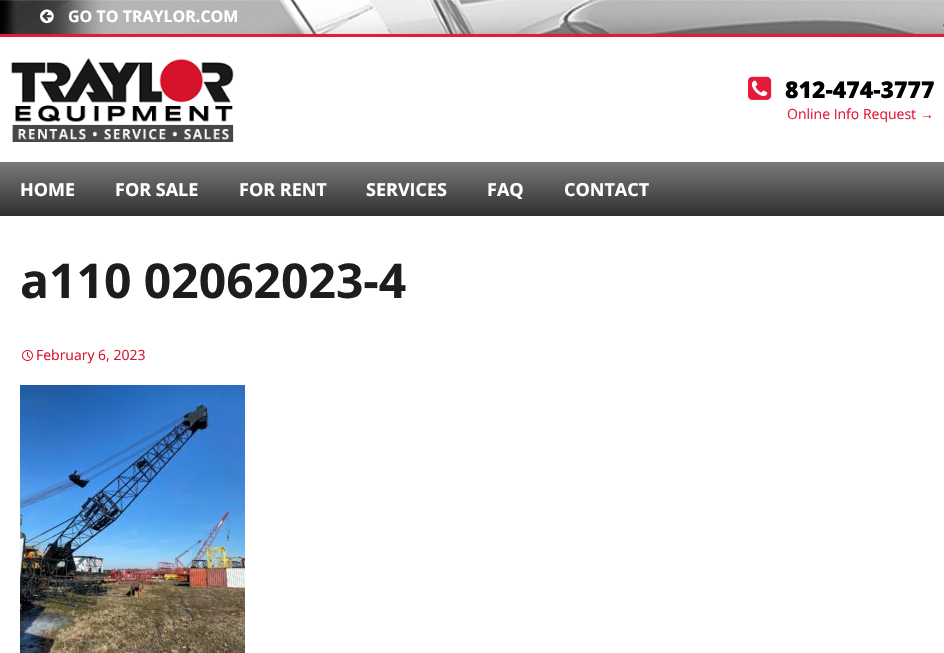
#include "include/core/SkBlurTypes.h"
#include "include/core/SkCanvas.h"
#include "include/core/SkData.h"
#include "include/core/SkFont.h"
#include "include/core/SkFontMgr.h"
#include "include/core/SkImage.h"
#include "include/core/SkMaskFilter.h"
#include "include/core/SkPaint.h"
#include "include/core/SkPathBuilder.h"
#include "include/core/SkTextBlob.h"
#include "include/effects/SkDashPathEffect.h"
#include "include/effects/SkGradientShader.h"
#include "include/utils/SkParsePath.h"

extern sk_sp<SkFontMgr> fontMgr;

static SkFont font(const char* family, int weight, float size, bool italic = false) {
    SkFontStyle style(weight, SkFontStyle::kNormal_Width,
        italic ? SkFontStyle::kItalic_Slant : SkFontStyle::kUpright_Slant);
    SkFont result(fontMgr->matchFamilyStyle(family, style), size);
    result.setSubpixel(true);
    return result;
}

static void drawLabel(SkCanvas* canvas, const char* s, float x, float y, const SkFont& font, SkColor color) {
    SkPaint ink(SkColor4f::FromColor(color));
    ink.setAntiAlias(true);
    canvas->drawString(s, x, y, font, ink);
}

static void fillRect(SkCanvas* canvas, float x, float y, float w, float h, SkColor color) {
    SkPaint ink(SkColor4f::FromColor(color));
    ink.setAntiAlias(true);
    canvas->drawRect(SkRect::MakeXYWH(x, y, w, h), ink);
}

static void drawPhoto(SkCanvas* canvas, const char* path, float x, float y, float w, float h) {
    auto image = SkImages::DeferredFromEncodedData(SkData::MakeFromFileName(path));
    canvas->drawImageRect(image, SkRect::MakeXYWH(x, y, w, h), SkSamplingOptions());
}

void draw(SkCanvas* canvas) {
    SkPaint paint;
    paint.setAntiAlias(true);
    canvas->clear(0xFFFFFFFF);
    fillRect(canvas, 0, 34, 944, 3, 0xFFE51A38);
    drawPhoto(canvas, "assets/img1.png", 0, 0, 944, 34);
    drawPhoto(canvas, "assets/img2.png", 40, 9, 14, 15);
    SkFont font1 = font("Open Sans", 700, 16);
    drawLabel(canvas, "GO TO TRAYLOR.COM", 68, 22, font1, 0xFFFFFFFF);
    drawPhoto(canvas, "assets/img3.png", 11, 58, 223, 84);
    drawPhoto(canvas, "assets/img4.png", 748, 76, 24, 24);
    SkFont font2 = font("Open Sans", 800, 23);
    drawLabel(canvas, "812-474-3777", 785, 98, font2, 0xFF000000);
    SkFont font3 = font("Open Sans", 400, 14);
    drawLabel(canvas, "Online Info Request", 787, 119, font3, 0xFFE51A38);
    SkFont font4 = font("Liberation Sans", 400, 14);
    drawLabel(canvas, "→", 920, 119, font4, 0xFFE51A38);
    {
        const SkColor colors[] = {0xFF7B7B7B, 0xFF2E2E2E};
        const float stops[] = {0, 1};
        const SkPoint ends[] = {{472, 162}, {472, 216}};
        paint.setShader(SkGradientShader::MakeLinear(ends, colors, stops, 2, SkTileMode::kClamp));
        paint.setAlpha(255);
    }
    canvas->drawRect(SkRect::MakeXYWH(0, 162, 944, 54), paint);
    SkFont font5 = font("Open Sans", 700, 18);
    drawLabel(canvas, "HOME", 20, 196, font5, 0xFFFFFFFF);
    drawLabel(canvas, "FOR SALE", 115, 196, font5, 0xFFFFFFFF);
    drawLabel(canvas, "FOR RENT", 239, 196, font5, 0xFFFFFFFF);
    drawLabel(canvas, "SERVICES", 366, 196, font5, 0xFFFFFFFF);
    drawLabel(canvas, "FAQ", 487, 196, font5, 0xFFFFFFFF);
    drawLabel(canvas, "CONTACT", 564, 196, font5, 0xFFFFFFFF);
    SkFont font6 = font("Open Sans", 700, 48);
    drawLabel(canvas, "a110 02062023-4", 20, 298, font6, 0xFF1D1D1D);
    drawPhoto(canvas, "assets/img5.png", 22, 350, 11, 11);
    drawLabel(canvas, "February 6, 2023", 36, 360, font3, 0xFFD6142C);
    drawPhoto(canvas, "assets/img6.png", 20, 385, 225, 268);
}
